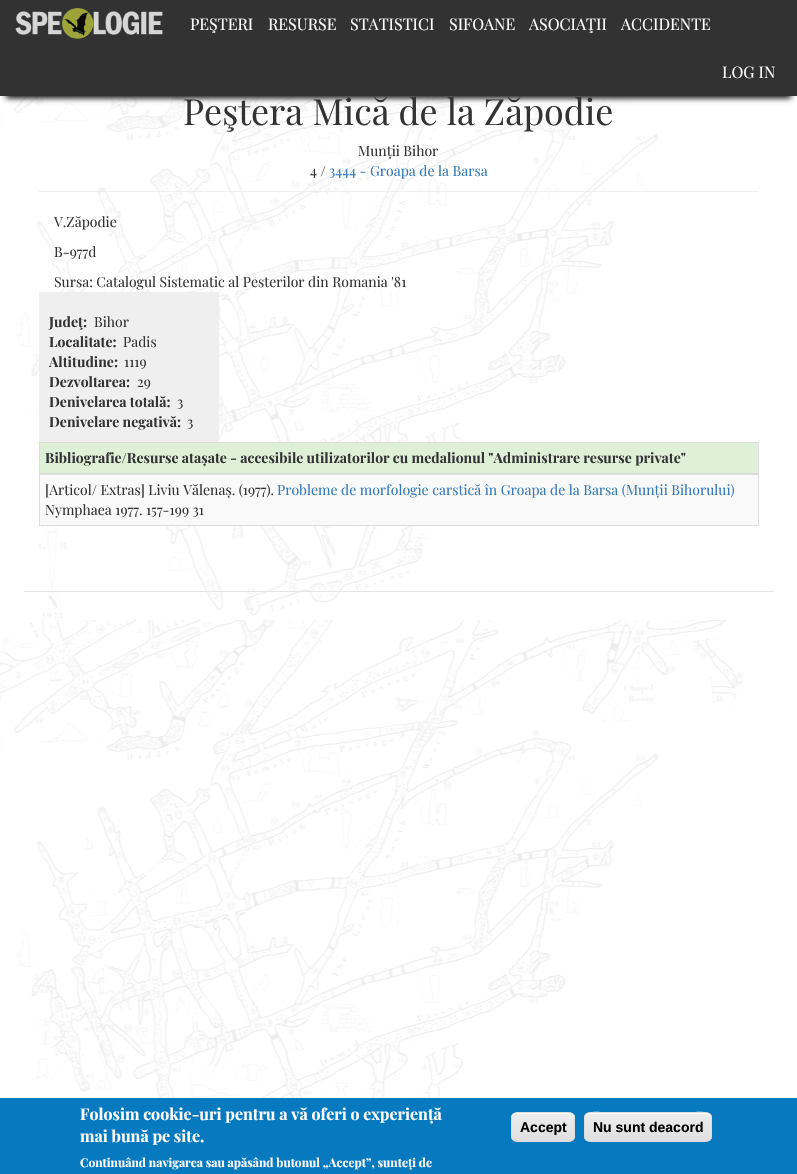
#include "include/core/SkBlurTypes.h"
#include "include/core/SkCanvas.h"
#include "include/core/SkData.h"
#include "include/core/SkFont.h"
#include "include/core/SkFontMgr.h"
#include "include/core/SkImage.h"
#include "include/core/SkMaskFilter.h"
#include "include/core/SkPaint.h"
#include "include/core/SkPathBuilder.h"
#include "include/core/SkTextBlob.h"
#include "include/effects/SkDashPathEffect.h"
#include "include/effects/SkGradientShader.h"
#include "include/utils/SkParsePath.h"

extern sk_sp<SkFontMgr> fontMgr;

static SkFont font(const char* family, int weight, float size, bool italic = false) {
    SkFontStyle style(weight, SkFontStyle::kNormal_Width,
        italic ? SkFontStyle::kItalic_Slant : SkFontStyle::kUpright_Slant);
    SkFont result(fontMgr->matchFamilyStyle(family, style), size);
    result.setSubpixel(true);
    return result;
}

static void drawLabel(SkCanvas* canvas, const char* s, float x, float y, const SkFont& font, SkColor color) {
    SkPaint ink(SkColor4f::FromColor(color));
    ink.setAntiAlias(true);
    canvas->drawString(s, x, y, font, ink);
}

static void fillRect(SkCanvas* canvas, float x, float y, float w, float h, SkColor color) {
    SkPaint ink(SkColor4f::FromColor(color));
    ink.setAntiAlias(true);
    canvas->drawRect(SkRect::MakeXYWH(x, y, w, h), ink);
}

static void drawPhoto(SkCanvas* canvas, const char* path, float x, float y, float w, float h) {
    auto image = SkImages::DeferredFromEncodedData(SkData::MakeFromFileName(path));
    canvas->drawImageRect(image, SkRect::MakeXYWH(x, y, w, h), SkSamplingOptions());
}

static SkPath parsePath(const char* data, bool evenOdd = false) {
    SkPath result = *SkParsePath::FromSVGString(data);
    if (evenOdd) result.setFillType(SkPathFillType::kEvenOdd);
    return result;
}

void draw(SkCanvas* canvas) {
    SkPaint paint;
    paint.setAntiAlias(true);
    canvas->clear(0xFFFFFFFF);
    drawPhoto(canvas, "assets/img1.png", 0, 96, 744, 1002);
    paint.setColor(0xFF000000);
    paint.setMaskFilter(SkMaskFilter::MakeBlur(kNormal_SkBlurStyle, 3));
    canvas->drawRect(SkRect::MakeXYWH(6, 14, 785, 84), paint);
    paint.setMaskFilter(nullptr);
    fillRect(canvas, 0, 0, 797, 96, 0xFF323232);
    drawPhoto(canvas, "assets/img2.png", 15, 8, 148, 31);
    SkFont font1 = font("Playfair Display", 400, 16);
    drawLabel(canvas, "PEŞTERI", 190, 30, font1, 0xFFFFFFFF);
    drawLabel(canvas, "RESURSE", 268, 30, font1, 0xFFFFFFFF);
    drawLabel(canvas, "STATISTICI", 350, 30, font1, 0xFFFFFFFF);
    drawLabel(canvas, "SIFOANE", 449, 30, font1, 0xFFFFFFFF);
    drawLabel(canvas, "ASOCIAŢII", 529, 30, font1, 0xFFFFFFFF);
    drawLabel(canvas, "ACCIDENTE", 621, 30, font1, 0xFFFFFFFF);
    drawLabel(canvas, "LOG IN", 722, 78, font1, 0xFFFFFFFF);
    fillRect(canvas, 39, 191, 720, 1, 0xFFEEEEEE);
    SkFont font2 = font("Playfair Display", 400, 36);
    drawLabel(canvas, "Peştera Mică de la Zăpodie", 183, 125, font2, 0xFF333333);
    SkFont font3 = font("Playfair Display", 400, 14);
    drawLabel(canvas, "Munții Bihor", 358, 156, font3, 0xFF333333);
    drawLabel(canvas, "4 /", 310, 176, font3, 0xFF333333);
    drawLabel(canvas, "3444 - Groapa de la Barsa", 329, 176, font3, 0xFF337AB7);
    drawLabel(canvas, "V.Zăpodie", 54, 227, font3, 0xFF333333);
    drawLabel(canvas, "B-977d", 54, 257, font3, 0xFF333333);
    drawLabel(canvas, "Sursa: Catalogul Sistematic al Pesterilor din Romania '81", 54, 287, font3, 0xFF333333);
    fillRect(canvas, 39, 292, 180, 150, 0xFFEFEFEF);
    SkFont font4 = font("Playfair Display", 700, 14);
    drawLabel(canvas, "Judeţ:", 49, 327, font4, 0xFF333333);
    drawLabel(canvas, "Bihor", 94, 327, font3, 0xFF333333);
    drawLabel(canvas, "Localitate:", 49, 347, font4, 0xFF333333);
    drawLabel(canvas, "Padis", 123, 347, font3, 0xFF333333);
    drawLabel(canvas, "Altitudine:", 49, 367, font4, 0xFF333333);
    drawLabel(canvas, "1119", 124, 367, font3, 0xFF333333);
    drawLabel(canvas, "Dezvoltarea:", 49, 387, font4, 0xFF333333);
    drawLabel(canvas, "29", 137, 387, font3, 0xFF333333);
    drawLabel(canvas, "Denivelarea totală:", 49, 407, font4, 0xFF333333);
    drawLabel(canvas, "3", 177, 407, font3, 0xFF333333);
    drawLabel(canvas, "Denivelare negativă:", 49, 427, font4, 0xFF333333);
    drawLabel(canvas, "3", 187, 427, font3, 0xFF333333);
    fillRect(canvas, 39, 442, 720, 1, 0xFFDDDDDD);
    fillRect(canvas, 758, 442, 1, 84, 0xFFDDDDDD);
    fillRect(canvas, 39, 525, 720, 1, 0xFFDDDDDD);
    fillRect(canvas, 39, 442, 1, 84, 0xFFDDDDDD);
    fillRect(canvas, 40, 443, 718, 30, 0xFFDFF0D8);
    fillRect(canvas, 39, 473, 720, 2, 0xFFDDDDDD);
    drawLabel(canvas, "Bibliografie/Resurse atașate - accesibile utilizatorilor cu medalionul \"Administrare resurse private\"", 45, 463, font4, 0xFF333333);
    fillRect(canvas, 40, 475, 718, 50, 0xFFF9F9F9);
    drawLabel(canvas, "[Articol/ Extras] Liviu Vălenaș. (1977).", 45, 495, font3, 0xFF333333);
    drawLabel(canvas, "Probleme de morfologie carstică în Groapa de la Barsa (Munții Bihorului)", 277, 495, font3, 0xFF337AB7);
    drawLabel(canvas, "Nymphaea 1977. 157-199 31", 45, 515, font3, 0xFF333333);
    fillRect(canvas, 24, 591, 750, 1, 0xFFE5E5E5);
    fillRect(canvas, 0, 1098, 797, 76, 0xFF0779BF);
    SkFont font5 = font("Playfair Display", 700, 16);
    drawLabel(canvas, "Folosim cookie-uri pentru a vă oferi o experiență", 80, 1120, font5, 0xFFFFFFFF);
    drawLabel(canvas, "mai bună pe site.", 80, 1142, font5, 0xFFFFFFFF);
    SkFont font6 = font("Playfair Display", 700, 12);
    drawLabel(canvas, "Continuând navigarea sau apăsând butonul „Accept”, sunteți de", 80, 1167, font6, 0xFFFFFFFF);
    canvas->save();
    canvas->clipPath(parsePath("M517 1112H569C572.5 1112 575 1114.5 575 1118V1136C575 1139.5 572.5 1142 569 1142H517C513.5 1142 511 1139.5 511 1136V1118C511 1114.5 513.5 1112 517 1112Z"), true);
    {
        const SkColor colors[] = {0xFFEDEDED, 0xFFDFDFDF};
        const float stops[] = {0.05f, 1};
        const SkPoint ends[] = {{543, 1113}, {543, 1141}};
        paint.setShader(SkGradientShader::MakeLinear(ends, colors, stops, 2, SkTileMode::kClamp));
        paint.setAlpha(255);
    }
    canvas->drawRect(SkRect::MakeXYWH(511, 1113, 64, 28), paint);
    canvas->restore();
    paint.setShader(nullptr);
    paint.setColor(0xFFFFFFFF);
    canvas->drawPath(parsePath("M517 1114H569C572 1114 574 1116 574 1119C574 1111 566 1113 560 1113H526C520 1113 512 1111 512 1119C512 1116 514 1114 517 1114Z"), paint);
    paint.setStroke(true);
    paint.setStrokeWidth(1);
    paint.setColor(0xFFDCDCDC);
    canvas->drawRoundRect(SkRect::MakeXYWH(511.5f, 1112.5f, 63, 29), 5.5f, 5.5f, paint);
    SkFont font7 = font("Liberation Sans", 700, 14);
    drawLabel(canvas, "Accept", 520, 1132, font7, 0xFF000000);
    canvas->save();
    canvas->clipPath(parsePath("M590 1112H706C709.5 1112 712 1114.5 712 1118V1136C712 1139.5 709.5 1142 706 1142H590C586.5 1142 584 1139.5 584 1136V1118C584 1114.5 586.5 1112 590 1112Z"), true);
    paint.setStroke(false);
    {
        const SkColor colors[] = {0xFFEDEDED, 0xFFDFDFDF};
        const float stops[] = {0.05f, 1};
        const SkPoint ends[] = {{648, 1113}, {648, 1141}};
        paint.setShader(SkGradientShader::MakeLinear(ends, colors, stops, 2, SkTileMode::kClamp));
        paint.setAlpha(255);
    }
    canvas->drawRect(SkRect::MakeXYWH(584, 1113, 128, 28), paint);
    canvas->restore();
    paint.setShader(nullptr);
    paint.setColor(0xFFFFFFFF);
    canvas->drawPath(parsePath("M590 1114H706C709 1114 711 1116 711 1119C711 1108 691 1113 687 1113H609C605 1113 585 1108 585 1119C585 1116 587 1114 590 1114Z"), paint);
    paint.setStroke(true);
    paint.setColor(0xFFDCDCDC);
    canvas->drawRoundRect(SkRect::MakeXYWH(584.5f, 1112.5f, 127, 29), 5.5f, 5.5f, paint);
    drawLabel(canvas, "Nu sunt deacord", 593, 1132, font7, 0xFF000000);
}
